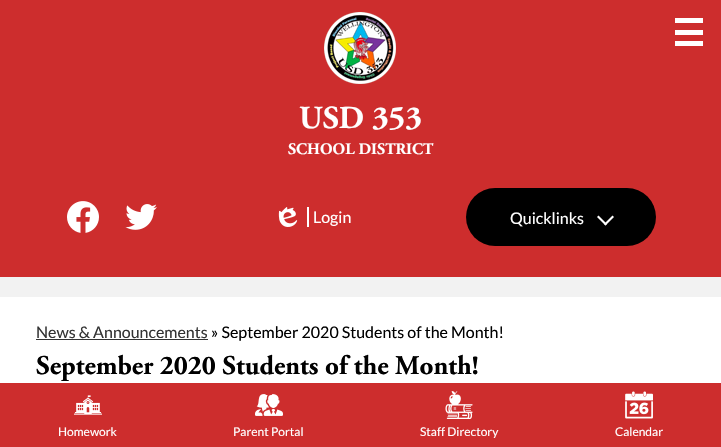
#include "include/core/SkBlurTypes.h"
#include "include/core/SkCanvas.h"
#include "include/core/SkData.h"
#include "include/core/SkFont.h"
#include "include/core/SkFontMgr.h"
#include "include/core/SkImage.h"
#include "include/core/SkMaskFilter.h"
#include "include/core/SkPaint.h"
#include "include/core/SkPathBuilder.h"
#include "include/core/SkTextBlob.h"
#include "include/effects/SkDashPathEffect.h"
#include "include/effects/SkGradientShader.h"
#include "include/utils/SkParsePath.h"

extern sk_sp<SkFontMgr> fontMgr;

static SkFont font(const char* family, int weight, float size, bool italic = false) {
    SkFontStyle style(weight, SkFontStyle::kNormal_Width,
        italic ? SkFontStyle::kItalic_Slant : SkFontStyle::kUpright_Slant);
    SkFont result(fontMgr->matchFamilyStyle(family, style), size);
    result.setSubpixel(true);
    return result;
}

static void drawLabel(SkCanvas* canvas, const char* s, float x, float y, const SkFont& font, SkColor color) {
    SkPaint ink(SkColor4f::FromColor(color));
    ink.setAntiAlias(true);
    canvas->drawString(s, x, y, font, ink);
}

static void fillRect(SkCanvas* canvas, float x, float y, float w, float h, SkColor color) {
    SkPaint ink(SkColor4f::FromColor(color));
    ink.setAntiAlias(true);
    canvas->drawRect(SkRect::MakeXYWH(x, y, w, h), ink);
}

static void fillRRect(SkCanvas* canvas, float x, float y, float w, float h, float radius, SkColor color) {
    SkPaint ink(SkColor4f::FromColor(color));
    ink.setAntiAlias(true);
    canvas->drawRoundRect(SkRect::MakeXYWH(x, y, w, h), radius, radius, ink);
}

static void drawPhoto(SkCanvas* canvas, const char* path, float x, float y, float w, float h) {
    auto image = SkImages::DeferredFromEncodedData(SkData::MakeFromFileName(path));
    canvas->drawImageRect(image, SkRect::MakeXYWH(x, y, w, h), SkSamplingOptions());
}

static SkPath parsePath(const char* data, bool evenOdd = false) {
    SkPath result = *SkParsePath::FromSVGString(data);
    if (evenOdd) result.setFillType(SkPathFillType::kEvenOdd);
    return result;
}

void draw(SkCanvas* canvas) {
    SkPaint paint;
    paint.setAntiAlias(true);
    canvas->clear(0xFFF2F2F2);
    fillRect(canvas, 0, 0, 721, 277, 0xFFCD2D2D);
    fillRect(canvas, 675, 18, 28, 5, 0xFFFFFFFF);
    fillRect(canvas, 675, 30, 28, 5, 0xFFFFFFFF);
    fillRect(canvas, 675, 41, 28, 5, 0xFFFFFFFF);
    drawPhoto(canvas, "assets/img1.png", 324, 12, 72, 72);
    SkFont font1 = font("Adobe Garamond", 700, 32);
    drawLabel(canvas, "USD 353", 299, 128, font1, 0xFFFFFFFF);
    SkFont font2 = font("Adobe Garamond", 700, 16);
    drawLabel(canvas, "SCHOOL DISTRICT", 288, 154, font2, 0xFFFFFFFF);
    drawPhoto(canvas, "assets/img2.png", 67, 201, 32, 32);
    drawPhoto(canvas, "assets/img3.png", 125, 204, 32, 26);
    fillRect(canvas, 307, 207, 2, 20, 0xFFFFFFFF);
    drawPhoto(canvas, "assets/img4.png", 278, 207, 20, 20);
    SkFont font3 = font("Lato", 400, 16);
    drawLabel(canvas, "Login", 313, 223, font3, 0xFFFFFFFF);
    fillRRect(canvas, 466, 188, 190, 58, 29, 0xFF000000);
    drawLabel(canvas, "Quicklinks", 510, 224, font3, 0xFFFFFFFF);
    paint.setColor(0xFFFFFFFF);
    canvas->drawPath(parsePath("M604 224L612.5 215.5L614 217L605.5 225.5Z"), paint);
    canvas->drawPath(parsePath("M597 217L598.5 215.5L607 224L605.5 225.5Z"), paint);
    fillRect(canvas, 0, 297, 721, 86, 0xFFFFFFFF);
    drawLabel(canvas, "News & Announcements", 36, 338, font3, 0xFF333333);
    fillRect(canvas, 36, 339, 172, 1, 0xFF333333);
    drawLabel(canvas, "» September 2020 Students of the Month!", 211, 338, font3, 0xFF000000);
    SkFont font4 = font("Adobe Garamond", 700, 27);
    drawLabel(canvas, "September 2020 Students of the Month!", 36, 374, font4, 0xFF000000);
    fillRect(canvas, 0, 383, 721, 64, 0xFFCD2D2D);
    drawPhoto(canvas, "assets/img5.png", 74, 395, 28, 20);
    SkFont font5 = font("Lato", 400, 12);
    drawLabel(canvas, "Homework", 58, 436, font5, 0xFFFFFFFF);
    drawPhoto(canvas, "assets/img6.png", 255, 394, 28, 22);
    drawLabel(canvas, "Parent Portal", 233, 436, font5, 0xFFFFFFFF);
    drawPhoto(canvas, "assets/img7.png", 445, 391, 28, 28);
    drawLabel(canvas, "Staff Directory", 420, 436, font5, 0xFFFFFFFF);
    drawPhoto(canvas, "assets/img8.png", 625, 391, 28, 28);
    drawLabel(canvas, "Calendar", 615, 436, font5, 0xFFFFFFFF);
}
